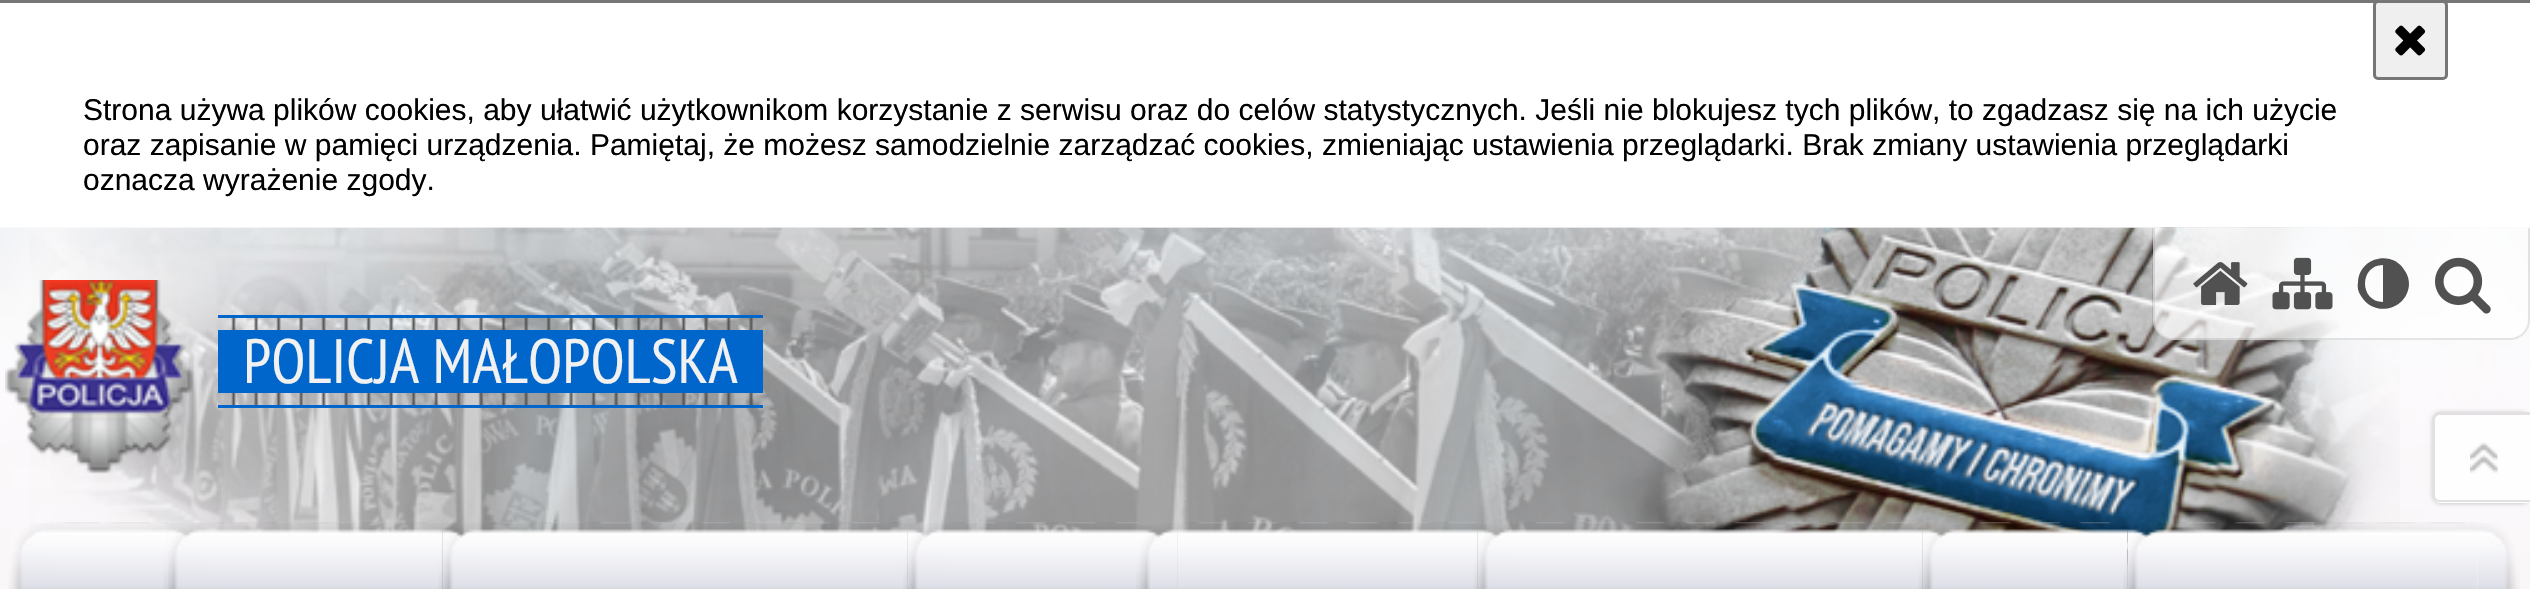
#include "include/core/SkBlurTypes.h"
#include "include/core/SkCanvas.h"
#include "include/core/SkData.h"
#include "include/core/SkFont.h"
#include "include/core/SkFontMgr.h"
#include "include/core/SkImage.h"
#include "include/core/SkMaskFilter.h"
#include "include/core/SkPaint.h"
#include "include/core/SkPathBuilder.h"
#include "include/core/SkTextBlob.h"
#include "include/effects/SkDashPathEffect.h"
#include "include/effects/SkGradientShader.h"
#include "include/utils/SkParsePath.h"

extern sk_sp<SkFontMgr> fontMgr;

static SkFont font(const char* family, int weight, float size, bool italic = false) {
    SkFontStyle style(weight, SkFontStyle::kNormal_Width,
        italic ? SkFontStyle::kItalic_Slant : SkFontStyle::kUpright_Slant);
    SkFont result(fontMgr->matchFamilyStyle(family, style), size);
    result.setSubpixel(true);
    return result;
}

static void drawLabel(SkCanvas* canvas, const char* s, float x, float y, const SkFont& font, SkColor color) {
    SkPaint ink(SkColor4f::FromColor(color));
    ink.setAntiAlias(true);
    canvas->drawString(s, x, y, font, ink);
}

static void fillRect(SkCanvas* canvas, float x, float y, float w, float h, SkColor color) {
    SkPaint ink(SkColor4f::FromColor(color));
    ink.setAntiAlias(true);
    canvas->drawRect(SkRect::MakeXYWH(x, y, w, h), ink);
}

static void drawPhoto(SkCanvas* canvas, const char* path, float x, float y, float w, float h) {
    auto image = SkImages::DeferredFromEncodedData(SkData::MakeFromFileName(path));
    canvas->drawImageRect(image, SkRect::MakeXYWH(x, y, w, h), SkSamplingOptions());
}

static SkPath parsePath(const char* data, bool evenOdd = false) {
    SkPath result = *SkParsePath::FromSVGString(data);
    if (evenOdd) result.setFillType(SkPathFillType::kEvenOdd);
    return result;
}

void draw(SkCanvas* canvas) {
    SkPaint paint;
    paint.setAntiAlias(true);
    canvas->clear(0xFFFFFFFF);
    fillRect(canvas, 0, 0, 2530, 3, 0xFF767676);
    paint.setColor(0xFFEFEFEF);
    canvas->drawRoundRect(SkRect::MakeXYWH(2374.5f, 1.5f, 72, 77), 3.5f, 3.5f, paint);
    paint.setStroke(true);
    paint.setStrokeWidth(3);
    paint.setColor(0xFF767676);
    canvas->drawRoundRect(SkRect::MakeXYWH(2374.5f, 1.5f, 72, 77), 3.5f, 3.5f, paint);
    drawPhoto(canvas, "assets/img1.png", 2395, 25, 31, 31);
    SkFont font1 = font("Liberation Sans", 400, 30);
    drawLabel(canvas, "Strona używa plików cookies, aby ułatwić użytkownikom korzystanie z serwisu oraz do celów statystycznych. Jeśli nie blokujesz tych plików, to zgadzasz się na ich użycie", 83, 120, font1, 0xFF000000);
    drawLabel(canvas, "oraz zapisanie w pamięci urządzenia. Pamiętaj, że możesz samodzielnie zarządzać cookies, zmieniając ustawienia przeglądarki. Brak zmiany ustawienia przeglądarki", 83, 155, font1, 0xFF000000);
    drawLabel(canvas, "oznacza wyrażenie zgody.", 83, 190, font1, 0xFF000000);
    drawPhoto(canvas, "assets/img2.png", 0, 227, 2530, 362);
    drawPhoto(canvas, "assets/img3.png", 29, 227, 2371, 362);
    paint.setStroke(false);
    paint.setColor(0xB3FFFFFF);
    canvas->drawPath(parsePath("M2153 228H2530V320C2530 331 2521 340 2510 340H2173C2162 340 2153 331 2153 320Z"), paint);
    paint.setColor(0x1A000000);
    canvas->drawPath(parsePath("M2152 228H2530V320C2530 331 2521 340 2510 340H2173C2161 340 2152 331 2152 320ZM2155 228H2528V320C2528 330 2520 338 2510 338H2173C2163 338 2155 330 2155 320Z", true), paint);
    drawPhoto(canvas, "assets/img4.png", 2193, 262, 55, 43);
    drawPhoto(canvas, "assets/img5.png", 2272, 257, 61, 53);
    paint.setColor(0xFF515151);
    canvas->drawPath(parsePath("M2383 302V265C2359 265 2359 302 2383 302ZM2405 271C2408 275 2409 280 2409 285C2407 310 2374 318 2361 296C2358 292 2357 287 2358 282C2359 257 2393 249 2405 271Z"), paint);
    drawPhoto(canvas, "assets/img6.png", 2435, 257, 56, 57);
    drawPhoto(canvas, "assets/img7.png", 231, 318, 523, 87);
    fillRect(canvas, 218, 315, 545, 3, 0xFF0066CC);
    fillRect(canvas, 218, 405, 545, 3, 0xFF0066CC);
    drawPhoto(canvas, "assets/img8.png", 5, 280, 189, 194);
    fillRect(canvas, 218, 330, 545, 63, 0xFF0066CC);
    SkFont font2 = font("PT Sans Narrow", 400, 62.5f);
    drawLabel(canvas, "POLICJA MAŁOPOLSKA", 243, 383, font2, 0xFFF1F1F1);
    drawPhoto(canvas, "assets/img9.png", 167, 523, 27, 66);
    drawPhoto(canvas, "assets/img10.png", 8, 523, 42, 66);
    drawPhoto(canvas, "assets/img11.png", 50, 522, 118, 67);
    drawPhoto(canvas, "assets/img12.png", 442, 523, 27, 66);
    drawPhoto(canvas, "assets/img13.png", 163, 523, 42, 66);
    drawPhoto(canvas, "assets/img14.png", 205, 522, 238, 67);
    drawPhoto(canvas, "assets/img15.png", 907, 523, 27, 66);
    drawPhoto(canvas, "assets/img16.png", 438, 523, 42, 66);
    drawPhoto(canvas, "assets/img17.png", 480, 522, 428, 67);
    drawPhoto(canvas, "assets/img18.png", 1140, 525, 38, 64);
    drawPhoto(canvas, "assets/img19.png", 903, 523, 42, 66);
    drawPhoto(canvas, "assets/img20.png", 945, 522, 195, 67);
    drawPhoto(canvas, "assets/img21.png", 1477, 524, 27, 65);
    drawPhoto(canvas, "assets/img22.png", 1136, 523, 42, 66);
    drawPhoto(canvas, "assets/img23.png", 1177, 522, 301, 67);
    drawPhoto(canvas, "assets/img24.png", 1922, 523, 27, 66);
    drawPhoto(canvas, "assets/img25.png", 1473, 524, 42, 65);
    drawPhoto(canvas, "assets/img26.png", 1515, 522, 408, 67);
    drawPhoto(canvas, "assets/img27.png", 2127, 527, 27, 62);
    drawPhoto(canvas, "assets/img28.png", 1918, 525, 42, 64);
    drawPhoto(canvas, "assets/img29.png", 1960, 522, 168, 67);
    drawPhoto(canvas, "assets/img30.png", 2477, 523, 43, 66);
    drawPhoto(canvas, "assets/img31.png", 2123, 528, 42, 61);
    drawPhoto(canvas, "assets/img32.png", 2165, 522, 313, 67);
    paint.setColor(0x40000000);
    paint.setMaskFilter(SkMaskFilter::MakeBlur(kNormal_SkBlurStyle, 2.5f));
    canvas->drawRoundRect(SkRect::MakeXYWH(2433, 413, 97, 90), 8, 8, paint);
    paint.setMaskFilter(nullptr);
    paint.setColor(0xFFFEFEFE);
    canvas->drawPath(parsePath("M2441 413H2530V503H2441C2436.5 503 2433 499.5 2433 495V421C2433 416.5 2436.5 413 2441 413Z"), paint);
    paint.setColor(0xFFE1E1E1);
    canvas->drawPath(parsePath("M2440 412H2530V502H2440C2436 502 2432 499 2432 495V420C2432 416 2436 412 2440 412ZM2440 415H2530V500H2440C2437 500 2435 498 2435 495V420C2435 417 2437 415 2440 415Z", true), paint);
    drawPhoto(canvas, "assets/img33.png", 2470, 442, 28, 31);
}
